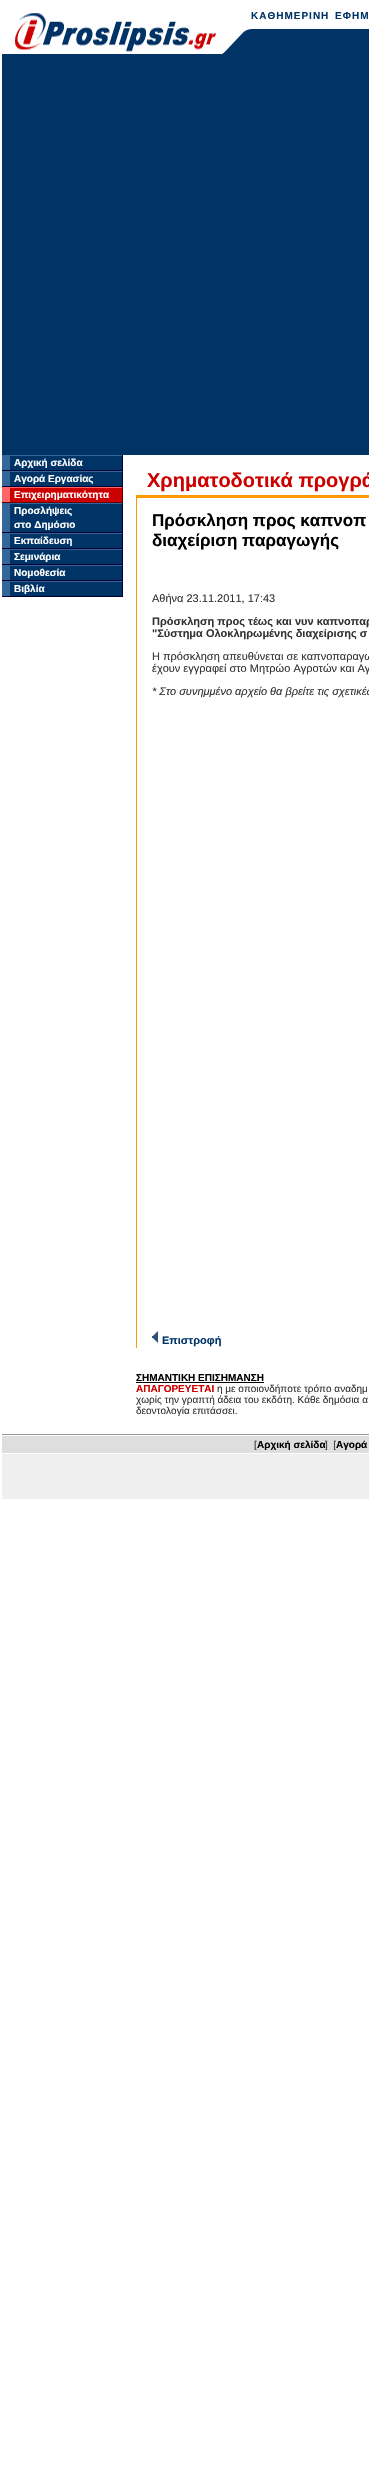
#include "include/core/SkBlurTypes.h"
#include "include/core/SkCanvas.h"
#include "include/core/SkData.h"
#include "include/core/SkFont.h"
#include "include/core/SkFontMgr.h"
#include "include/core/SkImage.h"
#include "include/core/SkMaskFilter.h"
#include "include/core/SkPaint.h"
#include "include/core/SkPathBuilder.h"
#include "include/core/SkTextBlob.h"
#include "include/effects/SkDashPathEffect.h"
#include "include/effects/SkGradientShader.h"
#include "include/utils/SkParsePath.h"

extern sk_sp<SkFontMgr> fontMgr;

static SkFont font(const char* family, int weight, float size, bool italic = false) {
    SkFontStyle style(weight, SkFontStyle::kNormal_Width,
        italic ? SkFontStyle::kItalic_Slant : SkFontStyle::kUpright_Slant);
    SkFont result(fontMgr->matchFamilyStyle(family, style), size);
    result.setSubpixel(true);
    return result;
}

static void drawLabel(SkCanvas* canvas, const char* s, float x, float y, const SkFont& font, SkColor color) {
    SkPaint ink(SkColor4f::FromColor(color));
    ink.setAntiAlias(true);
    canvas->drawString(s, x, y, font, ink);
}

static void drawTracked(SkCanvas* canvas, const char* s, float x, float y, const SkFont& font, const SkPaint& ink, float letter, float word) {
    std::vector<SkGlyphID> glyphs(font.countText(s, strlen(s), SkTextEncoding::kUTF8));
    std::vector<float> xs(glyphs.size());
    font.textToGlyphs(s, strlen(s), SkTextEncoding::kUTF8, glyphs);
    font.getXPos(glyphs, xs, x);
    float extra = 0;
    for (size_t i = 0; i < glyphs.size(); i++) {
        xs[i] += extra;
        extra += letter + word * (glyphs[i] == font.unicharToGlyph(' '));
    }
    canvas->drawTextBlob(SkTextBlob::MakeFromPosHGlyphs(glyphs, xs, y, font), 0, 0, ink);
}

static void fillRect(SkCanvas* canvas, float x, float y, float w, float h, SkColor color) {
    SkPaint ink(SkColor4f::FromColor(color));
    ink.setAntiAlias(true);
    canvas->drawRect(SkRect::MakeXYWH(x, y, w, h), ink);
}

static void drawPhoto(SkCanvas* canvas, const char* path, float x, float y, float w, float h) {
    auto image = SkImages::DeferredFromEncodedData(SkData::MakeFromFileName(path));
    canvas->drawImageRect(image, SkRect::MakeXYWH(x, y, w, h), SkSamplingOptions());
}

void draw(SkCanvas* canvas) {
    SkPaint paint;
    paint.setAntiAlias(true);
    canvas->clear(0xFFFFFFFF);
    drawPhoto(canvas, "assets/img1.png", 15, 13, 202, 39);
    SkFont font1 = font("Liberation Sans", 700, 10);
    paint.setColor(0xFF003366);
    drawTracked(canvas, "ΚΑΘΗΜΕΡΙΝΗ ΕΦΗΜ", 251, 19, font1, paint, 1, 2);
    drawPhoto(canvas, "assets/img2.png", 222, 29, 29, 25);
    fillRect(canvas, 251, 29, 118, 25, 0xFF003366);
    fillRect(canvas, 2, 54, 367, 375, 0xFF003366);
    fillRect(canvas, 2, 429, 367, 26, 0xFF003366);
    fillRect(canvas, 2, 455, 8, 32, 0xFF336699);
    fillRect(canvas, 2, 470, 8, 1, 0xFF000033);
    fillRect(canvas, 10, 456, 112, 14, 0xFF003366);
    fillRect(canvas, 10, 455, 113, 1, 0xFF336699);
    fillRect(canvas, 122, 455, 1, 16, 0xFF000033);
    fillRect(canvas, 10, 470, 113, 1, 0xFF000033);
    drawLabel(canvas, "Αρχική σελίδα", 14, 466, font1, 0xFFFFFFFF);
    fillRect(canvas, 10, 472, 112, 14, 0xFF003366);
    fillRect(canvas, 10, 471, 113, 1, 0xFF336699);
    fillRect(canvas, 122, 471, 1, 16, 0xFF000033);
    fillRect(canvas, 10, 486, 113, 1, 0xFF000033);
    drawLabel(canvas, "Αγορά Εργασίας", 14, 482, font1, 0xFFFFFFFF);
    fillRect(canvas, 2, 486, 8, 1, 0xFF000033);
    fillRect(canvas, 2, 487, 8, 16, 0xFFFF6666);
    fillRect(canvas, 2, 502, 8, 1, 0xFF660000);
    fillRect(canvas, 10, 488, 112, 14, 0xFFCC0000);
    fillRect(canvas, 10, 487, 113, 1, 0xFFFF6666);
    fillRect(canvas, 122, 487, 1, 16, 0xFF660000);
    fillRect(canvas, 10, 502, 113, 1, 0xFF660000);
    drawLabel(canvas, "Επιχειρηματικότητα", 14, 498, font1, 0xFFFFFFFF);
    fillRect(canvas, 2, 503, 8, 94, 0xFF336699);
    fillRect(canvas, 2, 532, 8, 1, 0xFF000033);
    fillRect(canvas, 10, 504, 112, 28, 0xFF003366);
    fillRect(canvas, 10, 503, 113, 1, 0xFF336699);
    fillRect(canvas, 122, 503, 1, 30, 0xFF000033);
    fillRect(canvas, 10, 532, 113, 1, 0xFF000033);
    drawLabel(canvas, "Προσλήψεις", 14, 514, font1, 0xFFFFFFFF);
    drawLabel(canvas, "στο Δημόσιο", 14, 528, font1, 0xFFFFFFFF);
    fillRect(canvas, 10, 534, 112, 14, 0xFF003366);
    fillRect(canvas, 10, 533, 113, 1, 0xFF336699);
    fillRect(canvas, 122, 533, 1, 16, 0xFF000033);
    fillRect(canvas, 10, 548, 113, 1, 0xFF000033);
    drawLabel(canvas, "Εκπαίδευση", 14, 544, font1, 0xFFFFFFFF);
    fillRect(canvas, 2, 548, 8, 1, 0xFF000033);
    fillRect(canvas, 10, 550, 112, 14, 0xFF003366);
    fillRect(canvas, 10, 549, 113, 1, 0xFF336699);
    fillRect(canvas, 122, 549, 1, 16, 0xFF000033);
    fillRect(canvas, 10, 564, 113, 1, 0xFF000033);
    drawLabel(canvas, "Σεμινάρια", 14, 560, font1, 0xFFFFFFFF);
    fillRect(canvas, 2, 564, 8, 1, 0xFF000033);
    fillRect(canvas, 10, 566, 112, 14, 0xFF003366);
    fillRect(canvas, 10, 565, 113, 1, 0xFF336699);
    fillRect(canvas, 122, 565, 1, 16, 0xFF000033);
    fillRect(canvas, 10, 580, 113, 1, 0xFF000033);
    drawLabel(canvas, "Νομοθεσία", 14, 576, font1, 0xFFFFFFFF);
    fillRect(canvas, 2, 580, 8, 1, 0xFF000033);
    fillRect(canvas, 10, 582, 112, 14, 0xFF003366);
    fillRect(canvas, 10, 581, 113, 1, 0xFF336699);
    fillRect(canvas, 122, 581, 1, 16, 0xFF000033);
    fillRect(canvas, 10, 596, 113, 1, 0xFF000033);
    drawLabel(canvas, "Βιβλία", 14, 592, font1, 0xFFFFFFFF);
    fillRect(canvas, 2, 596, 8, 1, 0xFF000033);
    SkFont font2 = font("Liberation Sans", 700, 20);
    drawLabel(canvas, "Χρηματοδοτικά προγρά", 147, 487, font2, 0xFFCC0000);
    fillRect(canvas, 136, 495, 233, 3, 0xFFFF9900);
    fillRect(canvas, 136, 498, 1, 850, 0xFFFF9900);
    SkFont font3 = font("Liberation Sans", 700, 17);
    drawLabel(canvas, "Πρόσκληση προς καπνοπ", 152, 526, font3, 0xFF000000);
    drawLabel(canvas, "διαχείριση παραγωγής", 152, 546, font3, 0xFF000000);
    SkFont font4 = font("Liberation Sans", 400, 11);
    drawLabel(canvas, "Αθήνα 23.11.2011, 17:43", 152, 602, font4, 0xFF333333);
    SkFont font5 = font("Liberation Sans", 700, 11);
    drawLabel(canvas, "Πρόσκληση προς τέως και νυν καπνοπαρ", 152, 625, font5, 0xFF333333);
    drawLabel(canvas, "\"Σύστημα Ολοκληρωμένης διαχείρισης σ", 152, 637, font5, 0xFF333333);
    drawLabel(canvas, "Η πρόσκληση απευθύνεται σε καπνοπαραγω", 152, 660, font4, 0xFF333333);
    drawLabel(canvas, "έχουν εγγραφεί στο Μητρώο Αγροτών και Αγ", 152, 672, font4, 0xFF333333);
    SkFont font6 = font("Liberation Sans", 400, 11, true);
    drawLabel(canvas, "* Στο συνημμένο αρχείο θα βρείτε τις σχετικές", 152, 695, font6, 0xFF333333);
    drawPhoto(canvas, "assets/img3.png", 152, 1331, 6, 12);
    drawLabel(canvas, "Επιστροφή", 162, 1344, font5, 0xFF003366);
    drawLabel(canvas, "ΣΗΜΑΝΤΙΚΗ ΕΠΙΣΗΜΑΝΣΗ", 136, 1381, font1, 0xFF000000);
    fillRect(canvas, 136, 1382, 128, 1, 0xFF000000);
    drawLabel(canvas, "ΑΠΑΓΟΡΕΥΕΤΑΙ", 136, 1392, font1, 0xFFCC0000);
    SkFont font7 = font("Liberation Sans", 400, 10);
    drawLabel(canvas, "η με οποιονδήποτε τρόπο αναδημ", 217, 1392, font7, 0xFF333333);
    drawLabel(canvas, "χωρίς την γραπτή άδεια του εκδότη. Κάθε δημόσια α", 136, 1403, font7, 0xFF333333);
    drawLabel(canvas, "δεοντολογία επιτάσσει.", 136, 1414, font7, 0xFF333333);
    fillRect(canvas, 2, 1434, 367, 1, 0xFF999999);
    fillRect(canvas, 2, 1436, 367, 17, 0xFFDEDEDE);
    drawLabel(canvas, "[", 254, 1448, font7, 0xFF333333);
    drawLabel(canvas, "Αρχική σελίδα", 257, 1448, font1, 0xFF000000);
    drawLabel(canvas, "]  [", 325, 1448, font7, 0xFF333333);
    drawLabel(canvas, "Αγορά", 336, 1448, font1, 0xFF000000);
    fillRect(canvas, 2, 1454, 367, 45, 0xFFEFEFEF);
}
